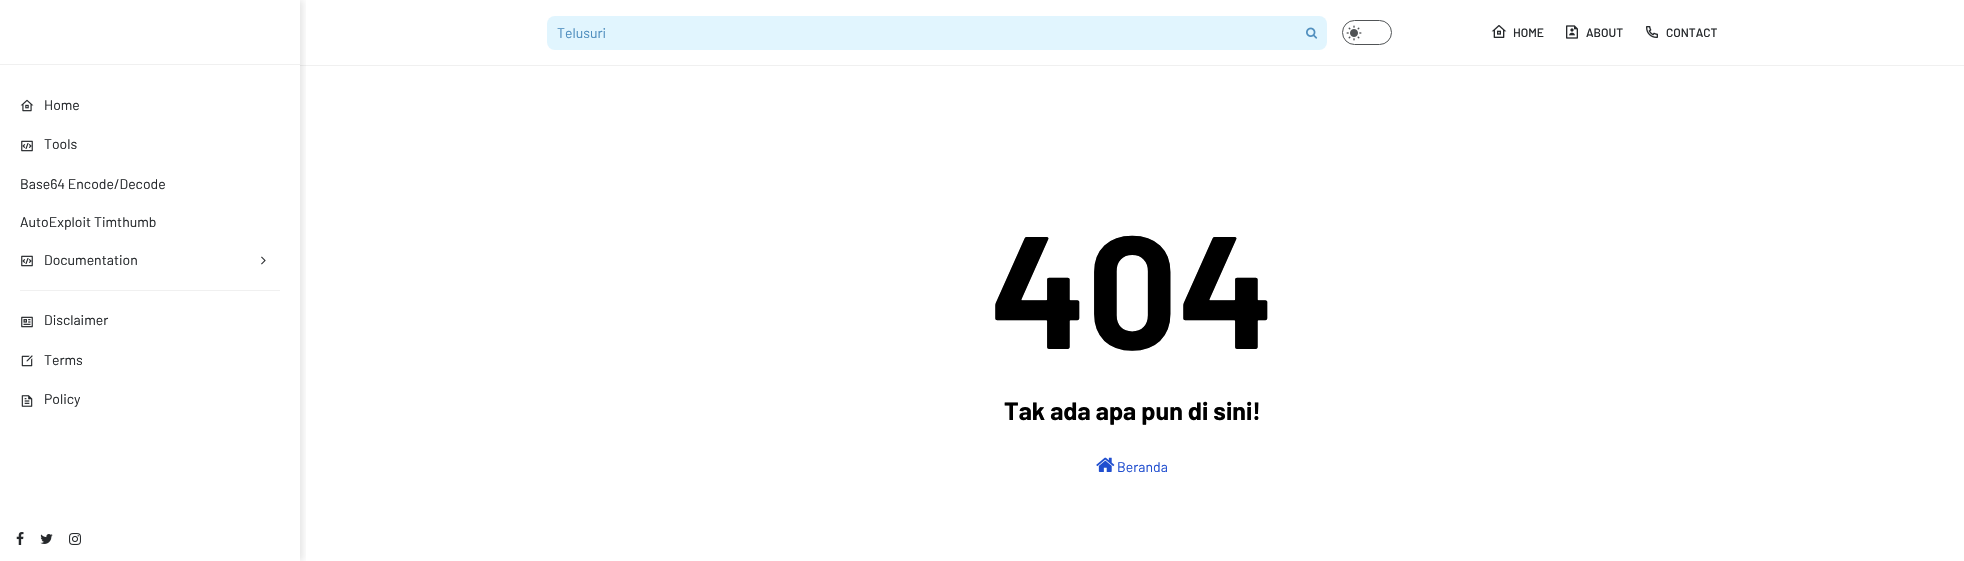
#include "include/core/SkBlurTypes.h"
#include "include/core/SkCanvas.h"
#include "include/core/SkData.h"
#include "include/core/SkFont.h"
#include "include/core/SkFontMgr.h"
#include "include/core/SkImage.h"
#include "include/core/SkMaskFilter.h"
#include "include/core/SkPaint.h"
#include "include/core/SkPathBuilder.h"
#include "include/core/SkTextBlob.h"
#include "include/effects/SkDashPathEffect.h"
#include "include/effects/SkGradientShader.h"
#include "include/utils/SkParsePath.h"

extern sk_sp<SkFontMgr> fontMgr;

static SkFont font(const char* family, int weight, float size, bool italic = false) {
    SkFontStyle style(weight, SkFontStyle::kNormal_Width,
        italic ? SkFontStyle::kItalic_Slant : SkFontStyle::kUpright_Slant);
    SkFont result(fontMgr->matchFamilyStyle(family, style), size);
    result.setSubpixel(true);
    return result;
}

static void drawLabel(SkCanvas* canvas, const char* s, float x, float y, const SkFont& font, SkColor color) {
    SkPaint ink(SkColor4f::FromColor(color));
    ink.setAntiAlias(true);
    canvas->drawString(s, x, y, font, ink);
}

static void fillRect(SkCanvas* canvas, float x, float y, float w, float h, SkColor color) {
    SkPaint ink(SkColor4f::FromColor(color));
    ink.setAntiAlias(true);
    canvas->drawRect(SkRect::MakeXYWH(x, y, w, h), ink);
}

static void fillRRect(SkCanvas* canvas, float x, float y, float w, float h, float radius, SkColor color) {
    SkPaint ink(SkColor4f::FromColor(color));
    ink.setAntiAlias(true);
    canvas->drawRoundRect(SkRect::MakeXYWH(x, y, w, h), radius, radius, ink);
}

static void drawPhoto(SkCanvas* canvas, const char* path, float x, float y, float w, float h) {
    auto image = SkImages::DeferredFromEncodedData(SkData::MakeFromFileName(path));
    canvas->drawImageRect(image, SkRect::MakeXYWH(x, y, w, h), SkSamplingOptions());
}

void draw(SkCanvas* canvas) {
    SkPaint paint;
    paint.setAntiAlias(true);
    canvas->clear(0xFFFFFFFF);
    fillRect(canvas, 300, 65, 1664, 1, 0xFFF0F0F0);
    canvas->save();
    canvas->clipRect(SkRect::MakeXYWH(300, 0, 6, 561));
    paint.setColor(0x1A000000);
    paint.setMaskFilter(SkMaskFilter::MakeBlur(kNormal_SkBlurStyle, 3.5f));
    canvas->drawRect(SkRect::MakeXYWH(3, 0, 300, 561), paint);
    paint.setMaskFilter(nullptr);
    canvas->restore();
    fillRect(canvas, 0, 64, 300, 1, 0xFFF0F0F0);
    fillRect(canvas, 20, 290, 260, 1, 0xFFF0F0F0);
    drawPhoto(canvas, "assets/img1.png", 20, 99, 14, 13);
    SkFont font1 = font("Barlow", 400, 14);
    drawLabel(canvas, "Home", 44, 110, font1, 0xFF26292C);
    drawPhoto(canvas, "assets/img2.png", 21, 140, 12, 12);
    drawLabel(canvas, "Tools", 44, 149, font1, 0xFF26292C);
    drawLabel(canvas, "Base64 Encode/Decode", 20, 189, font1, 0xFF26292C);
    drawLabel(canvas, "AutoExploit Timthumb", 20, 227, font1, 0xFF26292C);
    drawPhoto(canvas, "assets/img2.png", 21, 255, 12, 12);
    drawLabel(canvas, "Documentation", 44, 265, font1, 0xFF26292C);
    drawPhoto(canvas, "assets/img3.png", 261, 256, 5, 9);
    drawPhoto(canvas, "assets/img4.png", 21, 316, 12, 12);
    drawLabel(canvas, "Disclaimer", 44, 325, font1, 0xFF26292C);
    drawPhoto(canvas, "assets/img5.png", 21, 355, 12, 12);
    drawLabel(canvas, "Terms", 44, 365, font1, 0xFF26292C);
    drawPhoto(canvas, "assets/img6.png", 21, 395, 12, 12);
    drawLabel(canvas, "Policy", 44, 404, font1, 0xFF26292C);
    drawPhoto(canvas, "assets/img7.png", 16, 532, 8, 13);
    drawPhoto(canvas, "assets/img8.png", 40, 534, 13, 10);
    drawPhoto(canvas, "assets/img9.png", 69, 533, 12, 12);
    fillRRect(canvas, 547, 16, 780, 34, 8, 0xFFE1F5FE);
    drawLabel(canvas, "Telusuri", 557, 38, font1, 0xFF4F8EBE);
    drawPhoto(canvas, "assets/img10.png", 1306, 27, 12, 12);
    paint.setStroke(true);
    paint.setStrokeWidth(1);
    paint.setColor(0xFF515456);
    canvas->drawRoundRect(SkRect::MakeXYWH(1342.5f, 20.5f, 49, 24), 12, 12, paint);
    drawPhoto(canvas, "assets/img11.png", 1346, 25, 16, 16);
    drawPhoto(canvas, "assets/img12.png", 1491, 25, 16, 13);
    SkFont font2 = font("Barlow", 500, 12);
    drawLabel(canvas, "HOME", 1513, 37, font2, 0xFF26292C);
    drawPhoto(canvas, "assets/img13.png", 1566, 25, 12, 14);
    drawLabel(canvas, "ABOUT", 1586, 37, font2, 0xFF26292C);
    drawPhoto(canvas, "assets/img14.png", 1646, 26, 12, 12);
    drawLabel(canvas, "CONTACT", 1666, 37, font2, 0xFF26292C);
    SkFont font3 = font("Barlow", 700, 160);
    drawLabel(canvas, "404", 990, 349, font3, 0xFF000000);
    SkFont font4 = font("Barlow", 700, 25);
    drawLabel(canvas, "Tak ada apa pun di sini!", 1004, 420, font4, 0xFF000000);
    drawPhoto(canvas, "assets/img15.png", 1096, 457, 19, 15);
    drawLabel(canvas, "Beranda", 1117, 472, font1, 0xFF204ECF);
}
